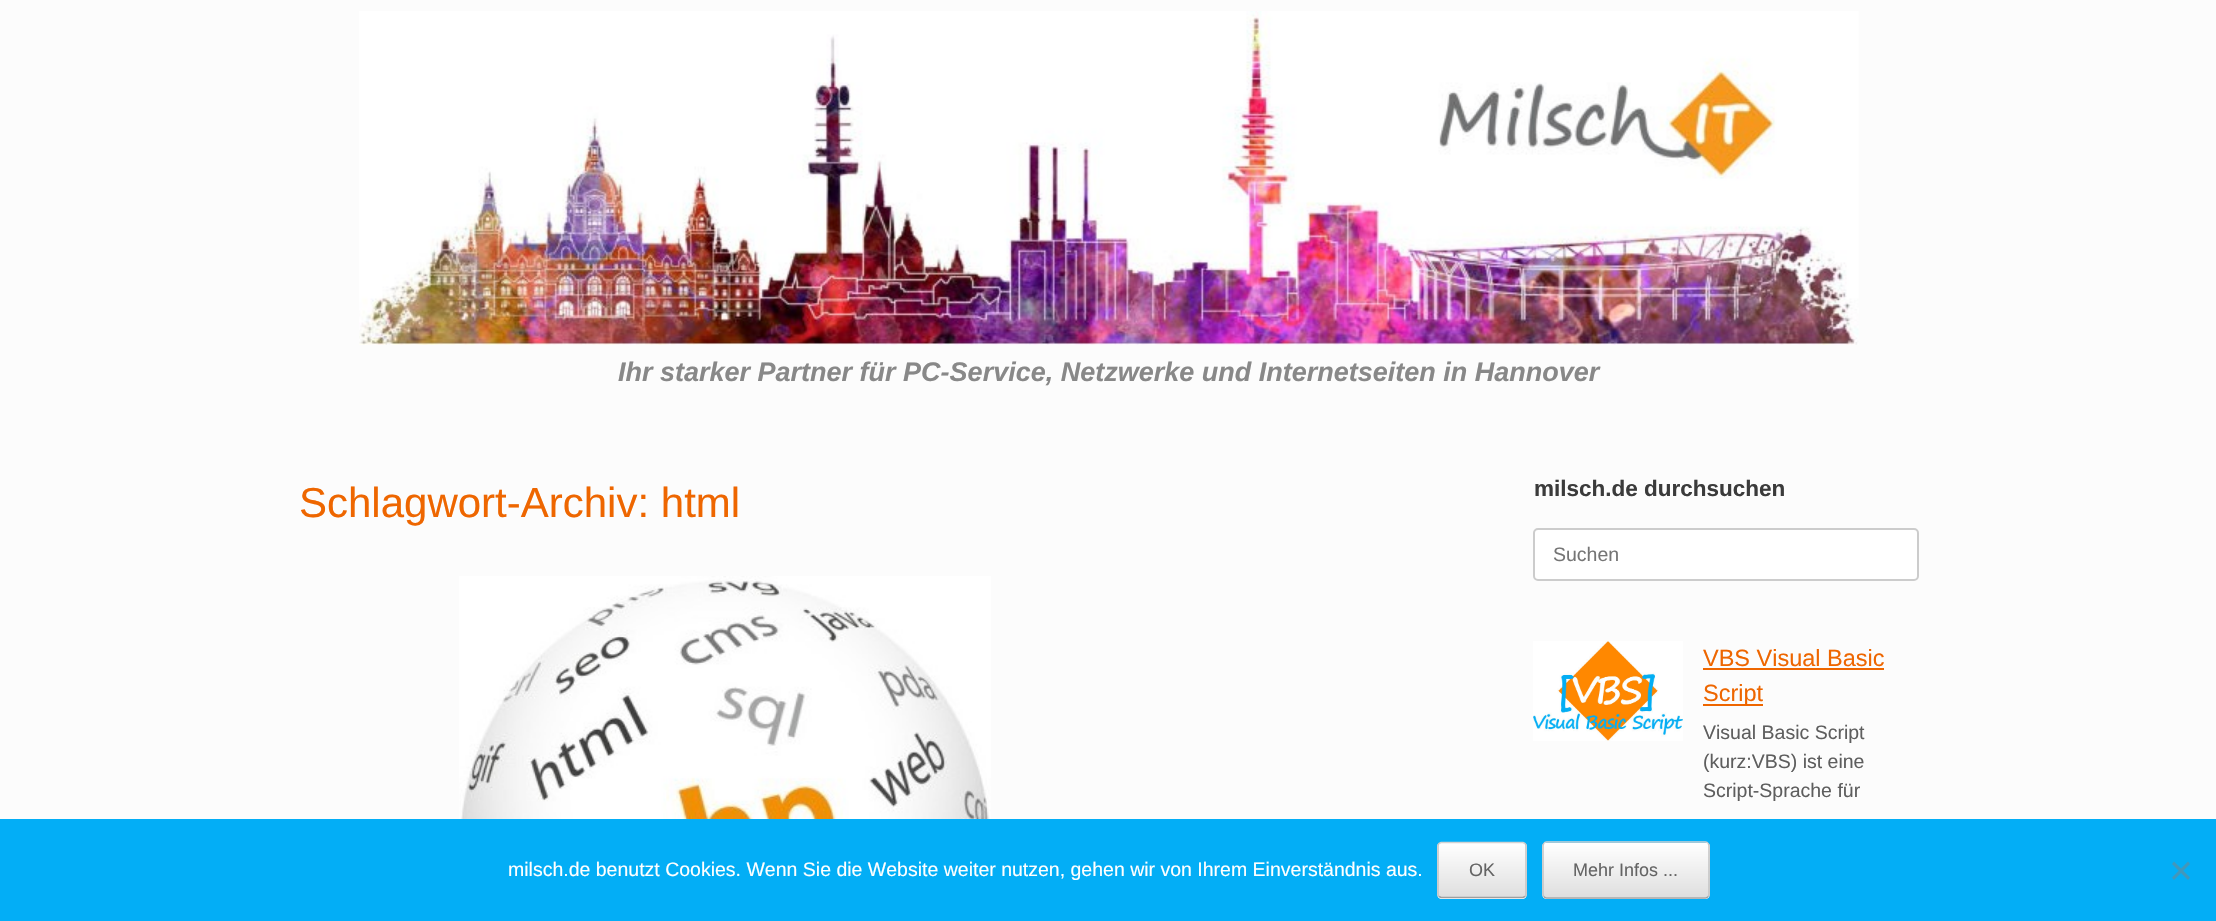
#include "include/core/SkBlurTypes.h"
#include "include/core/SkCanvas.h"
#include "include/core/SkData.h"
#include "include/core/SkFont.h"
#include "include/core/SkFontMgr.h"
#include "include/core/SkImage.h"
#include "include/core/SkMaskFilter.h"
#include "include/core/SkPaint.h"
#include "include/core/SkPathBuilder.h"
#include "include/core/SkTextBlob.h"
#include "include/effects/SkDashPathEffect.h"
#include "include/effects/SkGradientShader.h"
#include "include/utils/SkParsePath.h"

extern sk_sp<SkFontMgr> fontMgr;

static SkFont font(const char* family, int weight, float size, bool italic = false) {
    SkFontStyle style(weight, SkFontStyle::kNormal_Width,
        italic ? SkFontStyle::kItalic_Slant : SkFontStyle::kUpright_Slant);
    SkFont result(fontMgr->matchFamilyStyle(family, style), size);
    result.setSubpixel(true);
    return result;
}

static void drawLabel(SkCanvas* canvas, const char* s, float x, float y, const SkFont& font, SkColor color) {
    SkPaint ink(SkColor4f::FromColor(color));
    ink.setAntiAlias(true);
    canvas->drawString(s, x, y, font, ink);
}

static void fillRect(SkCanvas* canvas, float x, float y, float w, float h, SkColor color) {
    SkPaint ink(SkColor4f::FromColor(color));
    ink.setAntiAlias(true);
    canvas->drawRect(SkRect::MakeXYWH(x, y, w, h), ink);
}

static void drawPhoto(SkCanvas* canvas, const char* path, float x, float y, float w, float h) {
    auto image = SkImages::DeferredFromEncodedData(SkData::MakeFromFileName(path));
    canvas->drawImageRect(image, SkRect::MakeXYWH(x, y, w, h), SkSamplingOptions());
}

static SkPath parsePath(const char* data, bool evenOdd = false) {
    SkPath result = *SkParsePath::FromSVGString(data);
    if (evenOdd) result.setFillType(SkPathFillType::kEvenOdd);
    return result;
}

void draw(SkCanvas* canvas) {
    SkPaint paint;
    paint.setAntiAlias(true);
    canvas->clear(0xFFFCFCFC);
    drawPhoto(canvas, "assets/img1.png", 359, 11, 1500, 334);
    SkFont font1 = font("Liberation Sans", 700, 27, true);
    drawLabel(canvas, "Ihr starker Partner für PC-Service, Netzwerke und Internetseiten in Hannover", 618, 381, font1, 0xFF888888);
    SkFont font2 = font("Liberation Sans", 400, 42);
    drawLabel(canvas, "Schlagwort-Archiv: html", 299, 517, font2, 0xFFEE6600);
    drawPhoto(canvas, "assets/img2.png", 459, 576, 532, 243);
    SkFont font3 = font("Liberation Sans", 700, 22.5f);
    drawLabel(canvas, "milsch.de durchsuchen", 1534, 496, font3, 0xFF3B3B3B);
    paint.setColor(0xFFFFFFFF);
    canvas->drawRoundRect(SkRect::MakeXYWH(1534, 529, 384, 51), 4, 4, paint);
    paint.setStroke(true);
    paint.setStrokeWidth(2);
    paint.setColor(0xFFCCCCCC);
    canvas->drawRoundRect(SkRect::MakeXYWH(1534, 529, 384, 51), 4, 4, paint);
    SkFont font4 = font("Liberation Sans", 400, 19.5f);
    drawLabel(canvas, "Suchen", 1553, 561, font4, 0xFF757575);
    drawPhoto(canvas, "assets/img3.png", 1533, 641, 150, 100);
    SkFont font5 = font("Liberation Sans", 400, 23.5f);
    drawLabel(canvas, "VBS Visual Basic", 1703, 666, font5, 0xFFEE6600);
    fillRect(canvas, 1703, 668, 181, 2, 0xFFEE6600);
    fillRect(canvas, 1703, 704, 60, 2, 0xFFEE6600);
    drawLabel(canvas, "Script", 1703, 701, font5, 0xFFEE6600);
    drawLabel(canvas, "Visual Basic Script", 1703, 739, font4, 0xFF5E5E5E);
    drawLabel(canvas, "(kurz:VBS) ist eine", 1703, 768, font4, 0xFF5E5E5E);
    drawLabel(canvas, "Script-Sprache für", 1703, 797, font4, 0xFF5E5E5E);
    fillRect(canvas, 0, 819, 2216, 102, 0xFF03AEF6);
    drawLabel(canvas, "milsch.de benutzt Cookies. Wenn Sie die Website weiter nutzen, gehen wir von Ihrem Einverständnis aus.", 508, 876, font4, 0xFFFFFFFF);
    canvas->save();
    canvas->clipPath(parsePath("M1442 842H1522C1525 842 1527 844 1527 847V894C1527 897 1525 899 1522 899H1442C1439 899 1437 897 1437 894V847C1437 844 1439 842 1442 842Z"), true);
    paint.setStroke(false);
    {
        const SkColor colors[] = {0xFFDFDFDF, 0xFFFFFFFF};
        const float stops[] = {0, 1};
        const SkPoint ends[] = {{1439, 897}, {1439, 843}};
        paint.setShader(SkGradientShader::MakeLinear(ends, colors, stops, 2, SkTileMode::kClamp));
        paint.setAlpha(255);
    }
    canvas->drawRect(SkRect::MakeXYWH(1437, 843, 90, 54), paint);
    {
        const SkColor colors[] = {0xFFDFDFDF, 0xFFFFFFFF};
        const float stops[] = {0, 1};
        const SkPoint ends[] = {{1439, 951}, {1439, 897}};
        paint.setShader(SkGradientShader::MakeLinear(ends, colors, stops, 2, SkTileMode::kClamp));
        paint.setAlpha(255);
    }
    canvas->drawRect(SkRect::MakeXYWH(1437, 897, 90, 2), paint);
    canvas->restore();
    paint.setStroke(true);
    paint.setStrokeWidth(1.5f);
    paint.setShader(nullptr);
    paint.setColor(0xFFD2D2D2);
    canvas->drawPath(parsePath("M1439 843.5L1441 842.5H1523L1525 843.5"), paint);
    paint.setColor(0xFFC3C3C3);
    canvas->drawPath(parsePath("M1525 843.5C1526 844 1526 845 1526 846V894C1526 895 1526 896 1525 896.5"), paint);
    paint.setColor(0xFF9F9F9F);
    canvas->drawPath(parsePath("M1525 896.5L1523 897.5H1441L1439 896.5"), paint);
    paint.setColor(0xFFC3C3C3);
    canvas->drawPath(parsePath("M1439 896.5C1438 896 1438 895 1438 894V846C1438 845 1438 844 1439 843.5"), paint);
    SkFont font6 = font("Liberation Sans", 400, 18);
    drawLabel(canvas, "OK", 1469, 876, font6, 0xFF646464);
    canvas->save();
    canvas->clipPath(parsePath("M1547 842H1705C1708 842 1710 844 1710 847V894C1710 897 1708 899 1705 899H1547C1544 899 1542 897 1542 894V847C1542 844 1544 842 1547 842Z"), true);
    paint.setStroke(false);
    {
        const SkColor colors[] = {0xFFDFDFDF, 0xFFFFFFFF};
        const float stops[] = {0, 1};
        const SkPoint ends[] = {{1544, 897}, {1544, 843}};
        paint.setShader(SkGradientShader::MakeLinear(ends, colors, stops, 2, SkTileMode::kClamp));
        paint.setAlpha(255);
    }
    canvas->drawRect(SkRect::MakeXYWH(1542, 843, 168, 54), paint);
    {
        const SkColor colors[] = {0xFFDFDFDF, 0xFFFFFFFF};
        const float stops[] = {0, 1};
        const SkPoint ends[] = {{1544, 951}, {1544, 897}};
        paint.setShader(SkGradientShader::MakeLinear(ends, colors, stops, 2, SkTileMode::kClamp));
        paint.setAlpha(255);
    }
    canvas->drawRect(SkRect::MakeXYWH(1542, 897, 168, 2), paint);
    canvas->restore();
    paint.setStroke(true);
    paint.setShader(nullptr);
    paint.setColor(0xFFD2D2D2);
    canvas->drawPath(parsePath("M1544 843.5C1544.5 842.5 1545.5 842 1546.5 842H1705.5C1706.5 842 1707.5 842.5 1708 843.5"), paint);
    paint.setColor(0xFFC3C3C3);
    canvas->drawPath(parsePath("M1708 843.5C1709 844 1709 845 1709 846V894C1709 895 1709 896 1708 896.5"), paint);
    paint.setColor(0xFF9F9F9F);
    canvas->drawPath(parsePath("M1708 896.5C1707.5 897.5 1706.5 898 1705.5 898H1546.5C1545.5 898 1544.5 897.5 1544 896.5"), paint);
    paint.setColor(0xFFC3C3C3);
    canvas->drawPath(parsePath("M1544 896.5C1543 896 1543 895 1543 894V846C1543 845 1543 844 1544 843.5"), paint);
    drawLabel(canvas, "Mehr Infos ...", 1573, 876, font6, 0xFF646464);
    paint.setStroke(false);
    paint.setColor(0xFF4297BB);
    canvas->drawPath(parsePath("M2188 861.5L2190 864L2174 880L2172 877.5Z"), paint);
    canvas->drawPath(parsePath("M2172 864L2174 861.5L2190 877.5L2188 880Z"), paint);
}
